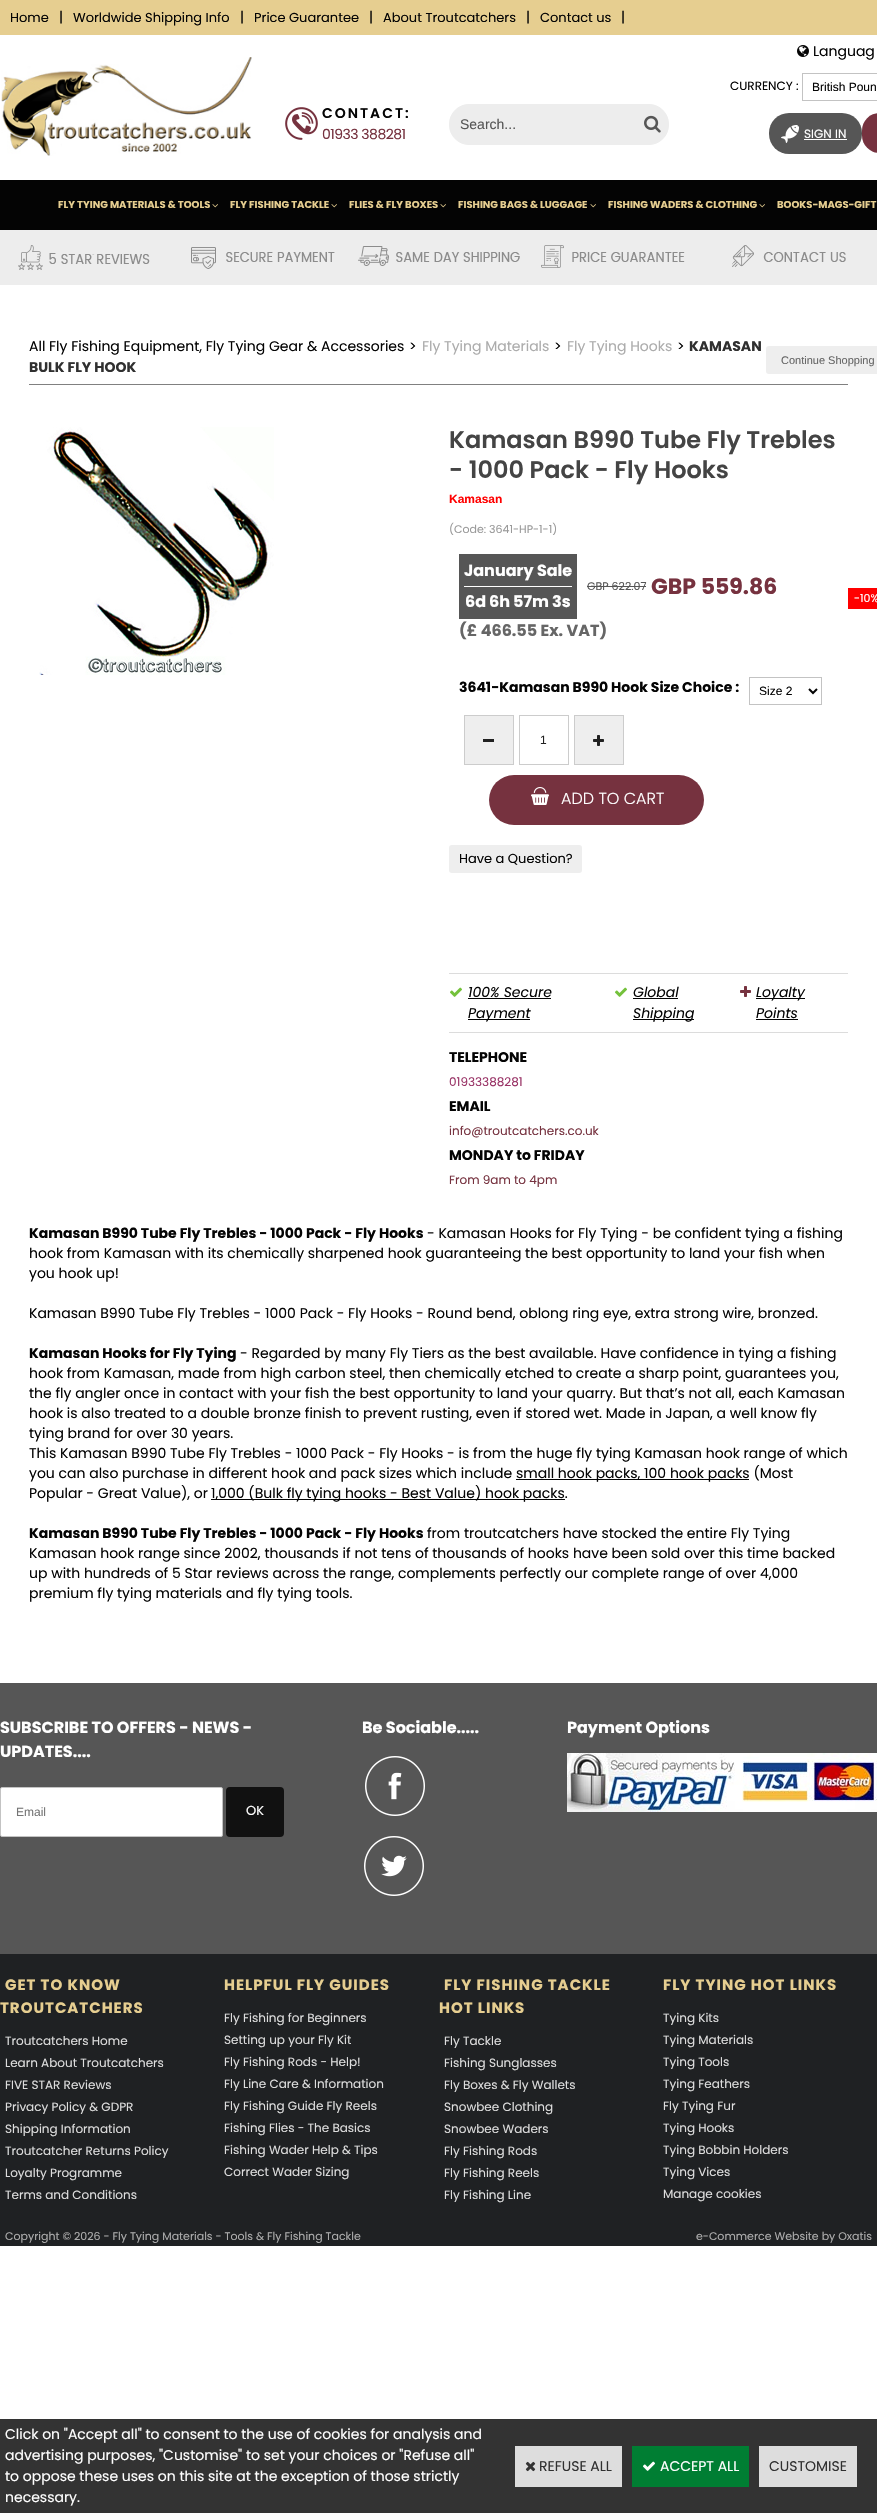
#include "include/core/SkBlurTypes.h"
#include "include/core/SkCanvas.h"
#include "include/core/SkData.h"
#include "include/core/SkFont.h"
#include "include/core/SkFontMgr.h"
#include "include/core/SkImage.h"
#include "include/core/SkMaskFilter.h"
#include "include/core/SkPaint.h"
#include "include/core/SkPathBuilder.h"
#include "include/core/SkTextBlob.h"
#include "include/effects/SkDashPathEffect.h"
#include "include/effects/SkGradientShader.h"
#include "include/utils/SkParsePath.h"

extern sk_sp<SkFontMgr> fontMgr;

static SkFont font(const char* family, int weight, float size, bool italic = false) {
    SkFontStyle style(weight, SkFontStyle::kNormal_Width,
        italic ? SkFontStyle::kItalic_Slant : SkFontStyle::kUpright_Slant);
    SkFont result(fontMgr->matchFamilyStyle(family, style), size);
    result.setSubpixel(true);
    return result;
}

static void drawLabel(SkCanvas* canvas, const char* s, float x, float y, const SkFont& font, SkColor color) {
    SkPaint ink(SkColor4f::FromColor(color));
    ink.setAntiAlias(true);
    canvas->drawString(s, x, y, font, ink);
}

static void drawTracked(SkCanvas* canvas, const char* s, float x, float y, const SkFont& font, const SkPaint& ink, float letter, float word) {
    std::vector<SkGlyphID> glyphs(font.countText(s, strlen(s), SkTextEncoding::kUTF8));
    std::vector<float> xs(glyphs.size());
    font.textToGlyphs(s, strlen(s), SkTextEncoding::kUTF8, glyphs);
    font.getXPos(glyphs, xs, x);
    float extra = 0;
    for (size_t i = 0; i < glyphs.size(); i++) {
        xs[i] += extra;
        extra += letter + word * (glyphs[i] == font.unicharToGlyph(' '));
    }
    canvas->drawTextBlob(SkTextBlob::MakeFromPosHGlyphs(glyphs, xs, y, font), 0, 0, ink);
}

static void fillRect(SkCanvas* canvas, float x, float y, float w, float h, SkColor color) {
    SkPaint ink(SkColor4f::FromColor(color));
    ink.setAntiAlias(true);
    canvas->drawRect(SkRect::MakeXYWH(x, y, w, h), ink);
}

static void fillRRect(SkCanvas* canvas, float x, float y, float w, float h, float radius, SkColor color) {
    SkPaint ink(SkColor4f::FromColor(color));
    ink.setAntiAlias(true);
    canvas->drawRoundRect(SkRect::MakeXYWH(x, y, w, h), radius, radius, ink);
}

static void drawPhoto(SkCanvas* canvas, const char* path, float x, float y, float w, float h) {
    auto image = SkImages::DeferredFromEncodedData(SkData::MakeFromFileName(path));
    canvas->drawImageRect(image, SkRect::MakeXYWH(x, y, w, h), SkSamplingOptions());
}

static SkPath parsePath(const char* data, bool evenOdd = false) {
    SkPath result = *SkParsePath::FromSVGString(data);
    if (evenOdd) result.setFillType(SkPathFillType::kEvenOdd);
    return result;
}

void draw(SkCanvas* canvas) {
    SkPaint paint;
    paint.setAntiAlias(true);
    canvas->clear(0xFFFFFFFF);
    fillRect(canvas, 0, 180, 877, 50, 0xFF040404);
    fillRect(canvas, 0, 0, 877, 35, 0xFFE6CE90);
    SkFont font1 = font("Poppins", 400, 13);
    drawLabel(canvas, "Home", 10, 22, font1, 0xFF040404);
    SkFont font2 = font("Poppins", 400, 14);
    drawLabel(canvas, "|", 59, 22, font2, 0xFF040404);
    drawLabel(canvas, "Worldwide Shipping Info", 73, 22, font1, 0xFF040404);
    drawLabel(canvas, "|", 240, 22, font2, 0xFF040404);
    drawLabel(canvas, "Price Guarantee", 254, 22, font1, 0xFF040404);
    drawLabel(canvas, "|", 369, 22, font2, 0xFF040404);
    drawLabel(canvas, "About Troutcatchers", 383, 22, font1, 0xFF040404);
    drawLabel(canvas, "|", 526, 22, font2, 0xFF040404);
    drawLabel(canvas, "Contact us", 540, 22, font1, 0xFF040404);
    drawLabel(canvas, "|", 621, 22, font2, 0xFF040404);
    drawPhoto(canvas, "assets/img1.png", 1, 57, 251, 99);
    drawPhoto(canvas, "assets/img2.png", 285, 107, 33, 33);
    SkFont font3 = font("Poppins", 600, 14);
    paint.setColor(0xFF040404);
    drawTracked(canvas, "CONTACT:", 322, 118, font3, paint, 2, 0);
    paint.setColor(0xFF76323F);
    drawTracked(canvas, "01933 388281", 322, 139, font2, paint, -0.5f, 0);
    paint.setColor(0xFFEDEDED);
    canvas->drawRoundRect(SkRect::MakeXYWH(449.5f, 104.5f, 219, 40), 19.5f, 19.5f, paint);
    paint.setStroke(true);
    paint.setStrokeWidth(1);
    canvas->drawRoundRect(SkRect::MakeXYWH(449.5f, 104.5f, 219, 40), 19.5f, 19.5f, paint);
    SkFont font4 = font("Liberation Sans", 400, 14);
    drawLabel(canvas, "Search...", 460, 129, font4, 0xFF565656);
    drawPhoto(canvas, "assets/img3.png", 644, 115, 17, 18);
    drawPhoto(canvas, "assets/img4.png", 797, 45, 12, 12);
    drawLabel(canvas, "Languag", 813, 56, font2, 0xFF040404);
    SkFont font5 = font("Poppins", 400, 12);
    drawLabel(canvas, "CURRENCY :", 730, 90, font5, 0xFF040404);
    paint.setColor(0xFFC3C3C3);
    canvas->drawRect(SkRect::MakeXYWH(802.5f, 73.5f, 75, 27), paint);
    SkFont font6 = font("Liberation Sans", 400, 12);
    drawLabel(canvas, "British Poun", 812, 91, font6, 0xFF040404);
    fillRRect(canvas, 769, 113, 93, 41, 20, 0xFF565656);
    drawPhoto(canvas, "assets/img5.png", 781, 125, 18, 18);
    drawLabel(canvas, "SIGN IN", 804, 138, font5, 0xFFFFFFFF);
    fillRect(canvas, 804, 139, 43, 1, 0xFFFFFFFF);
    fillRRect(canvas, 862, 113, 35, 40, 20, 0xFF76323F);
    SkFont font7 = font("Poppins", 700, 10);
    drawLabel(canvas, "FLY TYING MATERIALS & TOOLS", 58, 208, font7, 0xFFE6CE90);
    drawPhoto(canvas, "assets/img6.png", 212, 204, 6, 4);
    drawLabel(canvas, "FLY FISHING TACKLE", 230, 208, font7, 0xFFE6CE90);
    drawPhoto(canvas, "assets/img6.png", 331, 204, 6, 4);
    drawLabel(canvas, "FLIES & FLY BOXES", 349, 208, font7, 0xFFE6CE90);
    drawPhoto(canvas, "assets/img6.png", 440, 204, 6, 4);
    drawLabel(canvas, "FISHING BAGS & LUGGAGE", 458, 208, font7, 0xFFE6CE90);
    drawPhoto(canvas, "assets/img6.png", 590, 204, 6, 4);
    drawLabel(canvas, "FISHING WADERS & CLOTHING", 608, 208, font7, 0xFFE6CE90);
    drawPhoto(canvas, "assets/img6.png", 759, 204, 6, 4);
    drawLabel(canvas, "BOOKS-MAGS-GIFT", 777, 208, font7, 0xFFE6CE90);
    fillRect(canvas, 0, 230, 877, 55, 0xFFEDEDED);
    drawPhoto(canvas, "assets/img7.png", 18, 245, 132, 25);
    drawPhoto(canvas, "assets/img8.png", 191, 247, 144, 22);
    drawPhoto(canvas, "assets/img9.png", 358, 246, 162, 20);
    drawPhoto(canvas, "assets/img10.png", 541, 245, 144, 23);
    drawPhoto(canvas, "assets/img11.png", 732, 245, 114, 22);
    fillRect(canvas, 29, 384, 819, 1, 0xFF808080);
    drawLabel(canvas, "All Fly Fishing Equipment, Fly Tying Gear & Accessories", 29, 351, font2, 0xFF040404);
    drawLabel(canvas, ">", 409, 351, font2, 0xFF040404);
    drawLabel(canvas, "Fly Tying Materials", 422, 351, font2, 0xFFACACAC);
    drawLabel(canvas, ">", 554, 351, font2, 0xFF040404);
    drawLabel(canvas, "Fly Tying Hooks", 567, 351, font2, 0xFFACACAC);
    drawLabel(canvas, ">", 677, 351, font2, 0xFF040404);
    SkFont font8 = font("Poppins", 700, 14);
    drawLabel(canvas, "KAMASAN", 689, 351, font8, 0xFF303030);
    drawLabel(canvas, "BULK FLY HOOK", 29, 372, font8, 0xFF303030);
    fillRRect(canvas, 766, 346, 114, 28, 3, 0xFFEEEEEE);
    SkFont font9 = font("Liberation Sans", 400, 11);
    drawLabel(canvas, "Continue Shopping", 781, 364, font9, 0xFF666666);
    drawPhoto(canvas, "assets/img12.png", 39, 427, 235, 248);
    SkFont font10 = font("Poppins", 600, 24);
    drawLabel(canvas, "Kamasan B990 Tube Fly Trebles", 449, 448, font10, 0xFF444444);
    drawLabel(canvas, "- 1000 Pack - Fly Hooks", 449, 478, font10, 0xFF444444);
    SkFont font11 = font("Liberation Sans", 700, 12);
    drawLabel(canvas, "Kamasan", 449, 503, font11, 0xFFFF0000);
    SkFont font12 = font("Poppins", 400, 11);
    drawLabel(canvas, "(Code: 3641-HP-1-1)", 449, 533, font12, 0xFF999999);
    fillRect(canvas, 459, 554, 118, 65, 0xFF565656);
    fillRect(canvas, 464, 586, 108, 1, 0xFFFFFFFF);
    SkFont font13 = font("Poppins", 700, 16);
    drawLabel(canvas, "January Sale", 464, 576, font13, 0xFFFFFFFF);
    drawLabel(canvas, "6d", 465, 607, font13, 0xFFFFFFFF);
    drawLabel(canvas, "6h", 489, 607, font13, 0xFFFFFFFF);
    drawLabel(canvas, "57m", 513, 607, font13, 0xFFFFFFFF);
    drawLabel(canvas, "3s", 552, 607, font13, 0xFFFFFFFF);
    drawLabel(canvas, "GBP 622.07", 587, 590, font12, 0xFF565656);
    fillRect(canvas, 587, 586, 59, 1, 0xFF565656);
    SkFont font14 = font("Poppins", 700, 22);
    drawLabel(canvas, "GBP 559.86", 651, 594, font14, 0xFF76323F);
    drawLabel(canvas, "(£ 466.55 Ex. VAT)", 459, 636, font13, 0xFF666666);
    fillRect(canvas, 848, 588, 29, 21, 0xFFFF0000);
    drawLabel(canvas, "-10%", 854, 602, font12, 0xFFFFFFFF);
    drawLabel(canvas, "3641-Kamasan B990 Hook Size Choice :", 459, 692, font8, 0xFF040404);
    canvas->drawRect(SkRect::MakeXYWH(749.5f, 677.5f, 72, 27), paint);
    paint.setStrokeWidth(2);
    paint.setColor(0xFF040404);
    canvas->drawPath(parsePath("M809 689L813 693L817 689"), paint);
    drawLabel(canvas, "Size 2", 759, 695, font6, 0xFF040404);
    paint.setStroke(false);
    paint.setColor(0xFFEEEEEE);
    canvas->drawRect(SkRect::MakeXYWH(464.5f, 715.5f, 49, 49), paint);
    paint.setStroke(true);
    paint.setStrokeWidth(1);
    paint.setColor(0xFFCCCCCC);
    canvas->drawRect(SkRect::MakeXYWH(464.5f, 715.5f, 49, 49), paint);
    fillRect(canvas, 483, 739, 11, 3, 0xFF212121);
    canvas->drawRect(SkRect::MakeXYWH(519.5f, 715.5f, 49, 49), paint);
    drawLabel(canvas, "1", 540, 744, font6, 0xFF212121);
    paint.setStroke(false);
    paint.setColor(0xFFEEEEEE);
    canvas->drawRect(SkRect::MakeXYWH(574.5f, 715.5f, 49, 49), paint);
    paint.setStroke(true);
    paint.setColor(0xFFCCCCCC);
    canvas->drawRect(SkRect::MakeXYWH(574.5f, 715.5f, 49, 49), paint);
    drawPhoto(canvas, "assets/img13.png", 593, 735, 11, 11);
    fillRRect(canvas, 489, 775, 215, 50, 25, 0xFF76323F);
    drawPhoto(canvas, "assets/img14.png", 531, 787, 18, 18);
    SkFont font15 = font("Poppins", 300, 16);
    drawLabel(canvas, "ADD TO CART", 561, 804, font15, 0xFFFFFFFF);
    fillRRect(canvas, 449, 845, 133, 28, 3, 0xFFEEEEEE);
    drawLabel(canvas, "Have a Question?", 459, 863, font1, 0xFF040404);
    fillRect(canvas, 449, 973, 399, 1, 0xFFDCDCDC);
    fillRect(canvas, 449, 1032, 399, 1, 0xFFDCDCDC);
    drawPhoto(canvas, "assets/img15.png", 450, 987, 12, 10);
    SkFont font16 = font("Poppins", 400, 14, true);
    drawLabel(canvas, "100% Secure", 468, 997, font16, 0xFF040404);
    fillRect(canvas, 468, 998, 83, 1, 0xFF040404);
    fillRect(canvas, 468, 1019, 62, 1, 0xFF040404);
    drawLabel(canvas, "Payment", 468, 1018, font16, 0xFF040404);
    drawPhoto(canvas, "assets/img15.png", 615, 987, 12, 10);
    drawLabel(canvas, "Global", 633, 997, font16, 0xFF040404);
    fillRect(canvas, 633, 998, 45, 1, 0xFF040404);
    fillRect(canvas, 633, 1019, 61, 1, 0xFF040404);
    drawLabel(canvas, "Shipping", 633, 1018, font16, 0xFF040404);
    drawPhoto(canvas, "assets/img16.png", 740, 986, 11, 11);
    fillRect(canvas, 756, 998, 49, 1, 0xFF040404);
    drawLabel(canvas, "Loyalty", 756, 997, font16, 0xFF040404);
    drawLabel(canvas, "Points", 756, 1018, font16, 0xFF040404);
    fillRect(canvas, 756, 1019, 42, 1, 0xFF040404);
    drawLabel(canvas, "TELEPHONE", 449, 1062, font8, 0xFF040404);
    drawLabel(canvas, "01933388281", 449, 1086, font5, 0xFF993366);
    drawLabel(canvas, "EMAIL", 449, 1111, font8, 0xFF040404);
    drawLabel(canvas, "info@troutcatchers.co.uk", 449, 1135, font5, 0xFF76323F);
    drawLabel(canvas, "MONDAY to FRIDAY", 449, 1160, font8, 0xFF040404);
    drawLabel(canvas, "From 9am to 4pm", 449, 1184, font5, 0xFF76323F);
    drawLabel(canvas, "Kamasan B990 Tube Fly Trebles - 1000 Pack - Fly Hooks", 29, 1238, font8, 0xFF040404);
    drawLabel(canvas, "- Kamasan Hooks for Fly Tying - be confident tying a fishing", 427, 1238, font2, 0xFF040404);
    drawLabel(canvas, "hook from Kamasan with its chemically sharpened hook guaranteeing the best opportunity to land your fish when", 29, 1258, font2, 0xFF040404);
    drawLabel(canvas, "you hook up!", 29, 1278, font2, 0xFF040404);
    drawLabel(canvas, "Kamasan B990 Tube Fly Trebles - 1000 Pack - Fly Hooks - Round bend, oblong ring eye, extra strong wire, bronzed.", 29, 1318, font2, 0xFF040404);
    drawLabel(canvas, "Kamasan Hooks for Fly Tying", 29, 1358, font8, 0xFF040404);
    drawLabel(canvas, "- Regarded by many Fly Tiers as the best available. Have confidence in tying a fishing", 240, 1358, font2, 0xFF040404);
    drawLabel(canvas, "hook from Kamasan, made from high carbon steel, then chemically etched to create a sharp point, guarantees you,", 29, 1378, font2, 0xFF040404);
    drawLabel(canvas, "the fly angler once in contact with your fish the best opportunity to land your quarry. But that’s not all, each Kamasan", 29, 1398, font2, 0xFF040404);
    drawLabel(canvas, "hook is also treated to a double bronze finish to prevent rusting, even if stored wet. Made in Japan, a well know fly", 29, 1418, font2, 0xFF040404);
    drawLabel(canvas, "tying brand for over 30 years.", 29, 1438, font2, 0xFF040404);
    drawLabel(canvas, "This Kamasan B990 Tube Fly Trebles - 1000 Pack - Fly Hooks - is from the huge fly tying Kamasan hook range of which", 29, 1458, font2, 0xFF040404);
    drawLabel(canvas, "you can also purchase in different hook and pack sizes which include", 29, 1478, font2, 0xFF040404);
    fillRect(canvas, 516, 1479, 233, 1, 0xFF040404);
    drawLabel(canvas, "small hook packs, 100 hook packs (Most", 516, 1478, font2, 0xFF040404);
    drawLabel(canvas, "Popular - Great Value), or", 29, 1498, font2, 0xFF040404);
    fillRect(canvas, 211, 1499, 354, 1, 0xFF040404);
    drawLabel(canvas, "1,000 (Bulk fly tying hooks - Best Value) hook packs.", 211, 1498, font2, 0xFF040404);
    drawLabel(canvas, "Kamasan B990 Tube Fly Trebles - 1000 Pack - Fly Hooks", 29, 1538, font8, 0xFF040404);
    drawLabel(canvas, "from troutcatchers have stocked the entire Fly Tying", 427, 1538, font2, 0xFF040404);
    drawLabel(canvas, "Kamasan hook range since 2002, thousands if not tens of thousands of hooks have been sold over this time backed", 29, 1558, font2, 0xFF040404);
    drawLabel(canvas, "up with hundreds of 5 Star reviews across the range, complements perfectly our complete range of over 4,000", 29, 1578, font2, 0xFF040404);
    drawLabel(canvas, "premium fly tying materials and fly tying tools.", 29, 1598, font2, 0xFF040404);
    fillRect(canvas, 0, 1954, 877, 292, 0xFF1F2123);
    fillRect(canvas, 0, 1683, 877, 271, 0xFF565656);
    drawLabel(canvas, "SUBSCRIBE TO OFFERS - NEWS -", 0, 1733, font13, 0xFFFFFFFF);
    drawLabel(canvas, "UPDATES....", 0, 1757, font13, 0xFFFFFFFF);
    paint.setStroke(false);
    paint.setColor(0xFFFFFFFF);
    canvas->drawRoundRect(SkRect::MakeXYWH(0.5f, 1787.5f, 222, 49), 1.5f, 1.5f, paint);
    paint.setStroke(true);
    paint.setColor(0xFFC3C3C3);
    canvas->drawRoundRect(SkRect::MakeXYWH(0.5f, 1787.5f, 222, 49), 1.5f, 1.5f, paint);
    drawLabel(canvas, "Email", 16, 1816, font6, 0xFF757575);
    fillRRect(canvas, 226, 1787, 58, 50, 4, 0xFF111111);
    drawLabel(canvas, "OK", 246, 1815, font1, 0xFFFFFFFF);
    drawLabel(canvas, "Be Sociable.....", 362, 1733, font13, 0xFFFFFFFF);
    drawPhoto(canvas, "assets/img17.png", 365, 1756, 60, 60);
    drawPhoto(canvas, "assets/img18.png", 364, 1836, 60, 60);
    drawLabel(canvas, "Payment Options", 567, 1733, font13, 0xFFFFFFFF);
    drawPhoto(canvas, "assets/img19.png", 567, 1753, 310, 59);
    SkFont font17 = font("Poppins", 700, 15);
    paint.setStroke(false);
    paint.setColor(0xFFE6CE90);
    drawTracked(canvas, "GET TO KNOW", 5, 1990, font17, paint, 1, 0);
    drawTracked(canvas, "TROUTCATCHERS", 0, 2013, font17, paint, 1, 0);
    drawLabel(canvas, "Troutcatchers Home", 5, 2045, font5, 0xFFDDDDDD);
    drawLabel(canvas, "Learn About Troutcatchers", 5, 2067, font5, 0xFFDDDDDD);
    drawLabel(canvas, "FIVE STAR Reviews", 5, 2089, font5, 0xFFDDDDDD);
    drawLabel(canvas, "Privacy Policy & GDPR", 5, 2111, font5, 0xFFDDDDDD);
    drawLabel(canvas, "Shipping Information", 5, 2133, font5, 0xFFDDDDDD);
    drawLabel(canvas, "Troutcatcher Returns Policy", 5, 2155, font5, 0xFFDDDDDD);
    drawLabel(canvas, "Loyalty Programme", 5, 2177, font5, 0xFFDDDDDD);
    drawLabel(canvas, "Terms and Conditions", 5, 2199, font5, 0xFFDDDDDD);
    drawTracked(canvas, "HELPFUL FLY GUIDES", 224, 1990, font17, paint, 1, 0);
    drawLabel(canvas, "Fly Fishing for Beginners", 224, 2022, font5, 0xFFDDDDDD);
    drawLabel(canvas, "Setting up your Fly Kit", 224, 2044, font5, 0xFFDDDDDD);
    drawLabel(canvas, "Fly Fishing Rods - Help!", 224, 2066, font5, 0xFFDDDDDD);
    drawLabel(canvas, "Fly Line Care & Information", 224, 2088, font5, 0xFFDDDDDD);
    drawLabel(canvas, "Fly Fishing Guide Fly Reels", 224, 2110, font5, 0xFFDDDDDD);
    drawLabel(canvas, "Fishing Flies - The Basics", 224, 2132, font5, 0xFFDDDDDD);
    drawLabel(canvas, "Fishing Wader Help & Tips", 224, 2154, font5, 0xFFDDDDDD);
    drawLabel(canvas, "Correct Wader Sizing", 224, 2176, font5, 0xFFDDDDDD);
    drawTracked(canvas, "FLY FISHING TACKLE", 444, 1990, font17, paint, 1, 0);
    drawTracked(canvas, "HOT LINKS", 439, 2013, font17, paint, 1, 0);
    drawLabel(canvas, "Fly Tackle", 444, 2045, font5, 0xFFDDDDDD);
    drawLabel(canvas, "Fishing Sunglasses", 444, 2067, font5, 0xFFDDDDDD);
    drawLabel(canvas, "Fly Boxes & Fly Wallets", 444, 2089, font5, 0xFFDDDDDD);
    drawLabel(canvas, "Snowbee Clothing", 444, 2111, font5, 0xFFDDDDDD);
    drawLabel(canvas, "Snowbee Waders", 444, 2133, font5, 0xFFDDDDDD);
    drawLabel(canvas, "Fly Fishing Rods", 444, 2155, font5, 0xFFDDDDDD);
    drawLabel(canvas, "Fly Fishing Reels", 444, 2177, font5, 0xFFDDDDDD);
    drawLabel(canvas, "Fly Fishing Line", 444, 2199, font5, 0xFFDDDDDD);
    drawTracked(canvas, "FLY TYING HOT LINKS", 663, 1990, font17, paint, 1, 0);
    drawLabel(canvas, "Tying Kits", 663, 2022, font5, 0xFFDDDDDD);
    drawLabel(canvas, "Tying Materials", 663, 2044, font5, 0xFFDDDDDD);
    drawLabel(canvas, "Tying Tools", 663, 2066, font5, 0xFFDDDDDD);
    drawLabel(canvas, "Tying Feathers", 663, 2088, font5, 0xFFDDDDDD);
    drawLabel(canvas, "Fly Tying Fur", 663, 2110, font5, 0xFFDDDDDD);
    drawLabel(canvas, "Tying Hooks", 663, 2132, font5, 0xFFDDDDDD);
    drawLabel(canvas, "Tying Bobbin Holders", 663, 2154, font5, 0xFFDDDDDD);
    drawLabel(canvas, "Tying Vices", 663, 2176, font5, 0xFFDDDDDD);
    drawLabel(canvas, "Manage cookies", 663, 2198, font5, 0xFFDDDDDD);
    drawLabel(canvas, "Copyright © 2026 - Fly Tying Materials - Tools & Fly Fishing Tackle", 5, 2240, font12, 0xFFACACAC);
    drawLabel(canvas, "e-Commerce Website by Oxatis", 696, 2240, font12, 0xFFACACAC);
    fillRect(canvas, 0, 2419, 877, 94, 0xFF333333);
    drawLabel(canvas, "Click on \"Accept all\" to consent to the use of cookies for analysis and", 5, 2439, font2, 0xFFFFFFFF);
    drawLabel(canvas, "advertising purposes, \"Customise\" to set your choices or \"Refuse all\"", 5, 2460, font2, 0xFFFFFFFF);
    drawLabel(canvas, "to oppose these uses on this site at the exception of those strictly", 5, 2481, font2, 0xFFFFFFFF);
    drawLabel(canvas, "necessary.", 5, 2502, font2, 0xFFFFFFFF);
    fillRect(canvas, 515, 2446, 107, 41, 0xFFDDDDDD);
    drawPhoto(canvas, "assets/img20.png", 525, 2461, 11, 11);
    drawLabel(canvas, "REFUSE ALL", 539, 2471, font2, 0xFF303030);
    fillRect(canvas, 632, 2446, 117, 41, 0xFF007E33);
    drawPhoto(canvas, "assets/img21.png", 643, 2461, 12, 10);
    drawLabel(canvas, "ACCEPT ALL", 660, 2471, font2, 0xFFFFFFFF);
    fillRect(canvas, 759, 2446, 98, 41, 0xFFDDDDDD);
    drawLabel(canvas, "CUSTOMISE", 769, 2471, font2, 0xFF303030);
}
